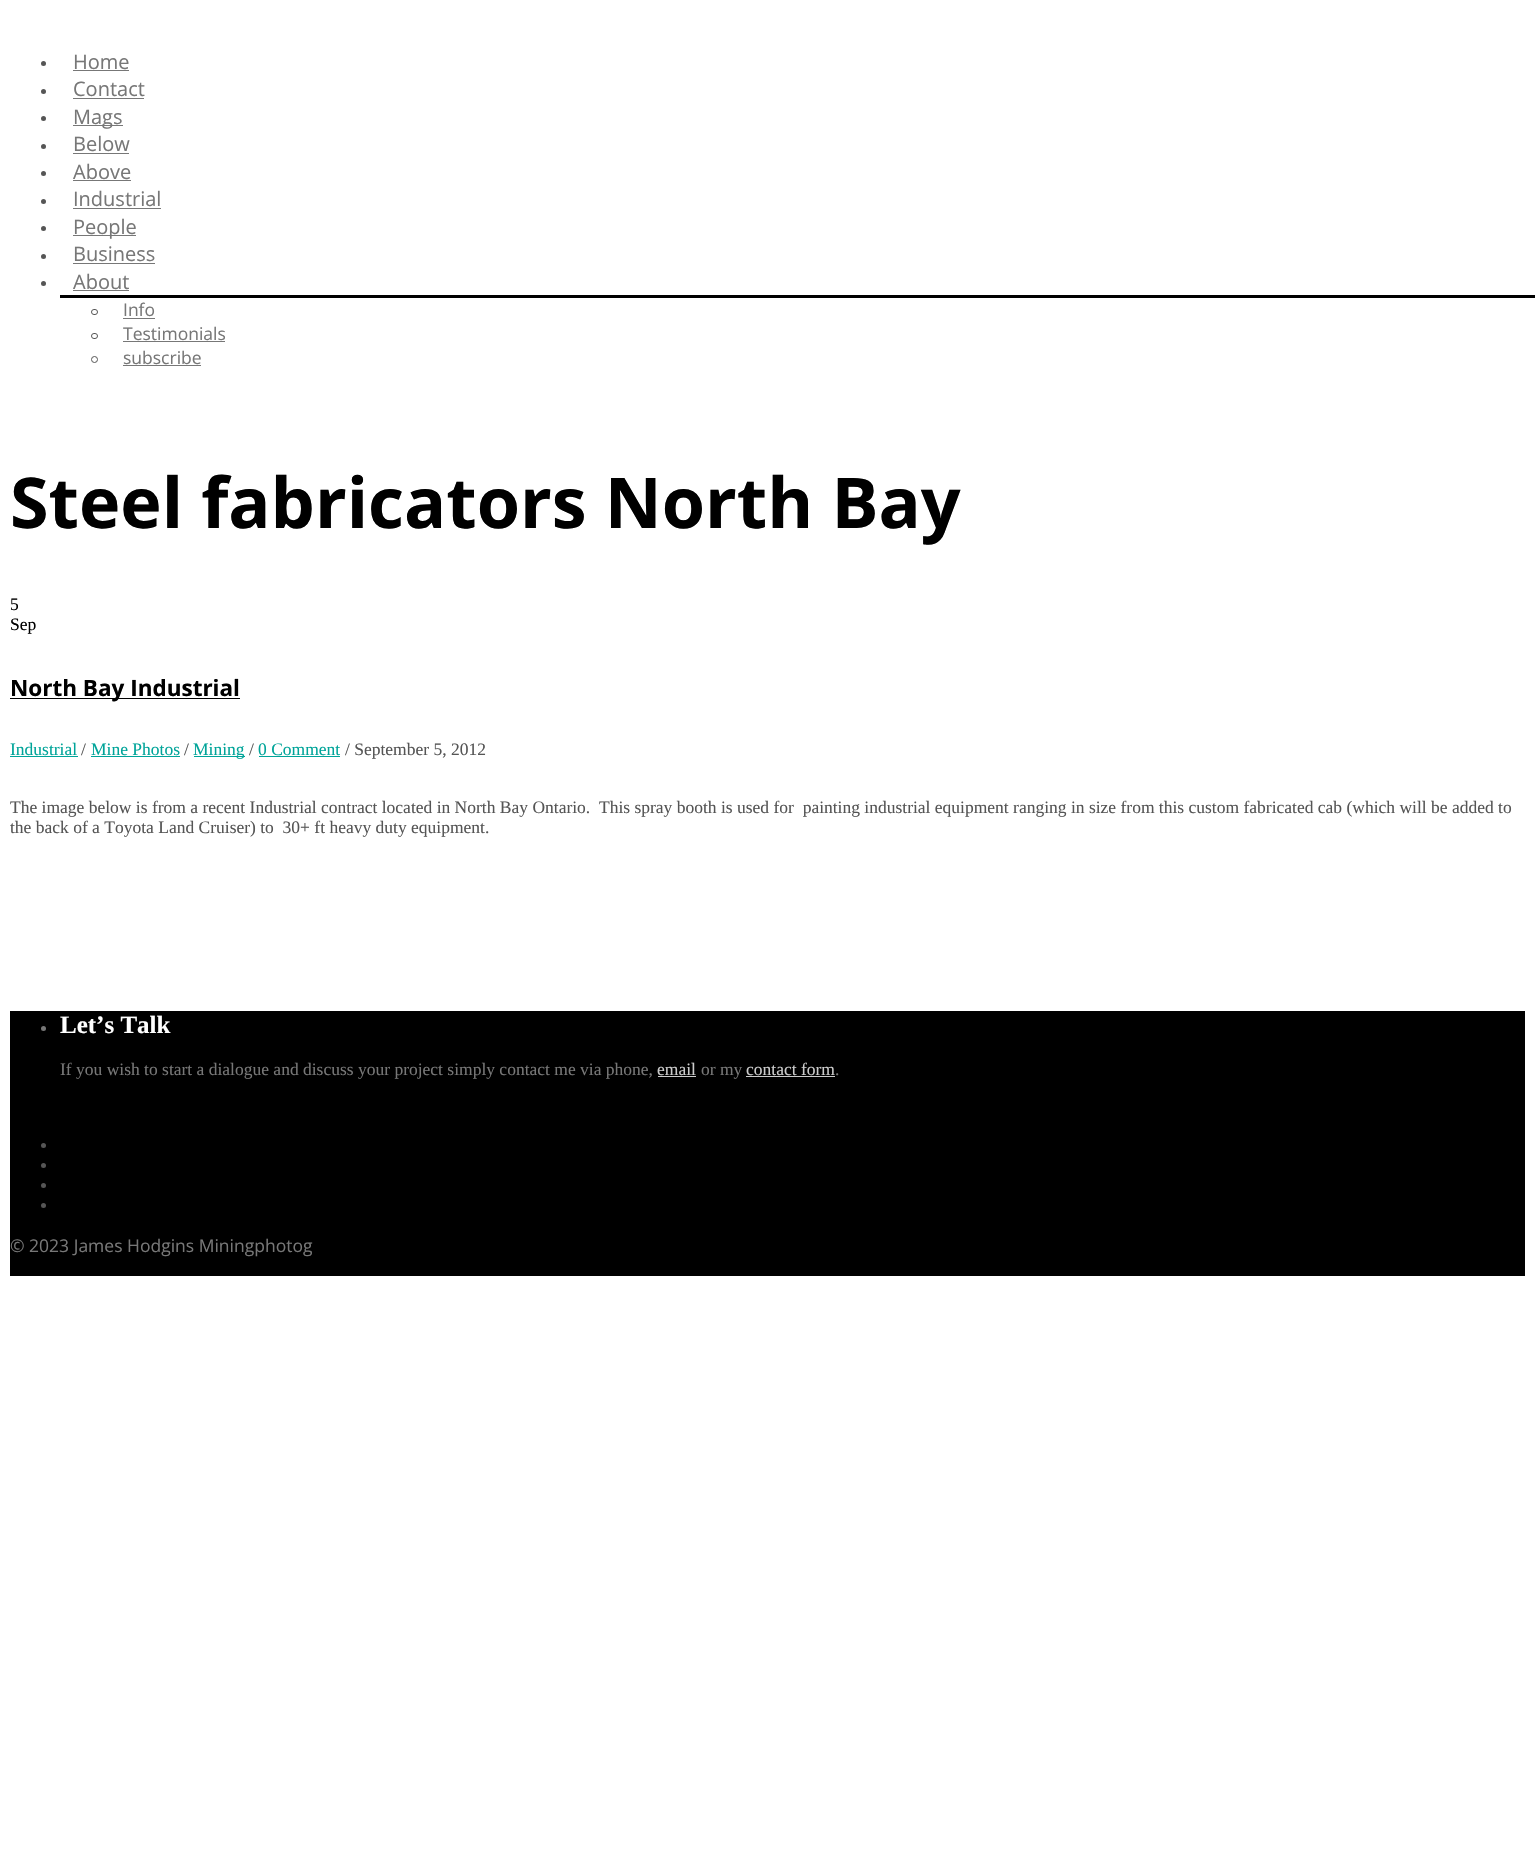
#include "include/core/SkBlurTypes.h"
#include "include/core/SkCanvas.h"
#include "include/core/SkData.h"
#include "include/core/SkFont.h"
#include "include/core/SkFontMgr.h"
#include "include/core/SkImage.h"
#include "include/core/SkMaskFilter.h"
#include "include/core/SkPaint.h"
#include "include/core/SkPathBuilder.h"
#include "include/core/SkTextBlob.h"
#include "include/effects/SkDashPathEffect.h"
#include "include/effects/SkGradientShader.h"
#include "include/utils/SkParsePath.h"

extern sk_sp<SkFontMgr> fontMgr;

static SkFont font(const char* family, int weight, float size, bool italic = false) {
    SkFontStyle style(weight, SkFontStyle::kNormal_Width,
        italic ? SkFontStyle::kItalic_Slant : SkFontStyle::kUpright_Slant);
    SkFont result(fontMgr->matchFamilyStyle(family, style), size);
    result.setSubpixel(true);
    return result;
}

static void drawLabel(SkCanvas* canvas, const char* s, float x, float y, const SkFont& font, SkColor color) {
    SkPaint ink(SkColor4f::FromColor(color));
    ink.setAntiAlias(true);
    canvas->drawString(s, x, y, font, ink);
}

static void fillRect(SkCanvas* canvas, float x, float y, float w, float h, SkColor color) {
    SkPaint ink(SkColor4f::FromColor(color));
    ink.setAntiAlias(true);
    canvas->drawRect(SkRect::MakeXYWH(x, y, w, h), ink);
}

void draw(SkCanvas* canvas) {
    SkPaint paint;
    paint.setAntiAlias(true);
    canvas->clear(0xFFFFFFFF);
    paint.setColor(0xFF555555);
    canvas->drawCircle(43.5f, 63.5f, 2.5f, paint);
    SkFont font1 = font("Open Sans", 400, 20);
    drawLabel(canvas, "Home", 73, 69, font1, 0xFF777777);
    fillRect(canvas, 73, 70, 56, 1, 0xFF777777);
    canvas->drawCircle(43.5f, 91.5f, 2.5f, paint);
    drawLabel(canvas, "Contact", 73, 96, font1, 0xFF777777);
    fillRect(canvas, 73, 98, 71, 1, 0xFF777777);
    canvas->drawCircle(43.5f, 118.5f, 2.5f, paint);
    fillRect(canvas, 73, 125, 50, 1, 0xFF777777);
    drawLabel(canvas, "Mags", 73, 124, font1, 0xFF777777);
    canvas->drawCircle(43.5f, 146.5f, 2.5f, paint);
    drawLabel(canvas, "Below", 73, 151, font1, 0xFF777777);
    fillRect(canvas, 73, 153, 56, 1, 0xFF777777);
    canvas->drawCircle(43.5f, 173.5f, 2.5f, paint);
    drawLabel(canvas, "Above", 73, 179, font1, 0xFF777777);
    fillRect(canvas, 73, 180, 58, 1, 0xFF777777);
    canvas->drawCircle(43.5f, 201.5f, 2.5f, paint);
    drawLabel(canvas, "Industrial", 73, 206, font1, 0xFF777777);
    fillRect(canvas, 73, 208, 88, 1, 0xFF777777);
    canvas->drawCircle(43.5f, 228.5f, 2.5f, paint);
    fillRect(canvas, 73, 235, 63, 1, 0xFF777777);
    drawLabel(canvas, "People", 73, 234, font1, 0xFF777777);
    canvas->drawCircle(43.5f, 256.5f, 2.5f, paint);
    drawLabel(canvas, "Business", 73, 261, font1, 0xFF777777);
    fillRect(canvas, 73, 263, 82, 1, 0xFF777777);
    canvas->drawCircle(43.5f, 283.5f, 2.5f, paint);
    drawLabel(canvas, "About", 73, 289, font1, 0xFF777777);
    fillRect(canvas, 73, 290, 56, 1, 0xFF777777);
    fillRect(canvas, 60, 295, 1475, 3, 0xFF000000);
    paint.setStroke(true);
    paint.setStrokeWidth(1);
    canvas->drawRoundRect(SkRect::MakeXYWH(91.5f, 309.5f, 6, 5), 2.5f, 2.5f, paint);
    SkFont font2 = font("Open Sans", 400, 17.5f);
    drawLabel(canvas, "Info", 123, 316, font2, 0xFF777777);
    fillRect(canvas, 123, 318, 32, 1, 0xFF777777);
    canvas->drawRoundRect(SkRect::MakeXYWH(91.5f, 333.5f, 6, 5), 2.5f, 2.5f, paint);
    drawLabel(canvas, "Testimonials", 123, 340, font2, 0xFF777777);
    fillRect(canvas, 123, 341, 102, 1, 0xFF777777);
    canvas->drawCircle(94.5f, 359.5f, 3, paint);
    drawLabel(canvas, "subscribe", 123, 364, font2, 0xFF777777);
    fillRect(canvas, 123, 365, 78, 1, 0xFF777777);
    SkFont font3 = font("Open Sans", 700, 70);
    drawLabel(canvas, "Steel fabricators North Bay", 10, 528, font3, 0xFF000000);
    SkFont font4 = font("Liberation Serif", 400, 17.5f);
    drawLabel(canvas, "5", 10, 610, font4, 0xFF000000);
    drawLabel(canvas, "Sep", 10, 630, font4, 0xFF000000);
    fillRect(canvas, 10, 698, 230, 1, 0xFF000000);
    SkFont font5 = font("Open Sans", 700, 22.5f);
    drawLabel(canvas, "North Bay Industrial", 10, 696, font5, 0xFF000000);
    drawLabel(canvas, "Industrial", 10, 755, font4, 0xFF00A499);
    fillRect(canvas, 10, 756, 68, 1, 0xFF00A499);
    drawLabel(canvas, "/", 81, 755, font4, 0xFF555555);
    drawLabel(canvas, "Mine Photos", 91, 755, font4, 0xFF00A499);
    fillRect(canvas, 91, 756, 89, 1, 0xFF00A499);
    drawLabel(canvas, "/", 184, 755, font4, 0xFF555555);
    fillRect(canvas, 194, 756, 51, 1, 0xFF00A499);
    drawLabel(canvas, "Mining", 193, 755, font4, 0xFF00A499);
    drawLabel(canvas, "/", 249, 755, font4, 0xFF555555);
    drawLabel(canvas, "0 Comment", 258, 755, font4, 0xFF00A499);
    fillRect(canvas, 259, 756, 81, 1, 0xFF00A499);
    drawLabel(canvas, "/ September 5, 2012", 345, 755, font4, 0xFF555555);
    drawLabel(canvas, "The image below is from a recent Industrial contract located in North Bay Ontario.  This spray booth is used for  painting industrial equipment ranging in size from this custom fabricated cab (which will be added to", 10, 813, font4, 0xFF555555);
    drawLabel(canvas, "the back of a Toyota Land Cruiser) to  30+ ft heavy duty equipment.", 10, 833, font4, 0xFF555555);
    fillRect(canvas, 10, 1011, 1515, 265, 0xFF000000);
    paint.setStroke(false);
    paint.setColor(0xFF777777);
    canvas->drawCircle(43.5f, 1028.5f, 2.5f, paint);
    SkFont font6 = font("Liberation Serif", 700, 25);
    drawLabel(canvas, "Let’s Talk", 60, 1033, font6, 0xFFFFFFFF);
    drawLabel(canvas, "If you wish to start a dialogue and discuss your project simply contact me via phone,", 60, 1075, font4, 0xFF777777);
    drawLabel(canvas, "email", 657, 1075, font4, 0xFFCCCCCC);
    fillRect(canvas, 658, 1076, 38, 1, 0xFFCCCCCC);
    drawLabel(canvas, "or my", 701, 1075, font4, 0xFF777777);
    drawLabel(canvas, "contact form", 746, 1075, font4, 0xFFCCCCCC);
    fillRect(canvas, 746, 1076, 89, 1, 0xFFCCCCCC);
    drawLabel(canvas, ".", 835, 1075, font4, 0xFF777777);
    paint.setColor(0xFF555555);
    canvas->drawCircle(43.5f, 1145.5f, 2.5f, paint);
    canvas->drawCircle(43.5f, 1165.5f, 2.5f, paint);
    canvas->drawCircle(43.5f, 1185.5f, 2.5f, paint);
    canvas->drawCircle(43.5f, 1205.5f, 2.5f, paint);
    drawLabel(canvas, "© 2023 James Hodgins Miningphotog", 10, 1252, font2, 0xFF777777);
}
